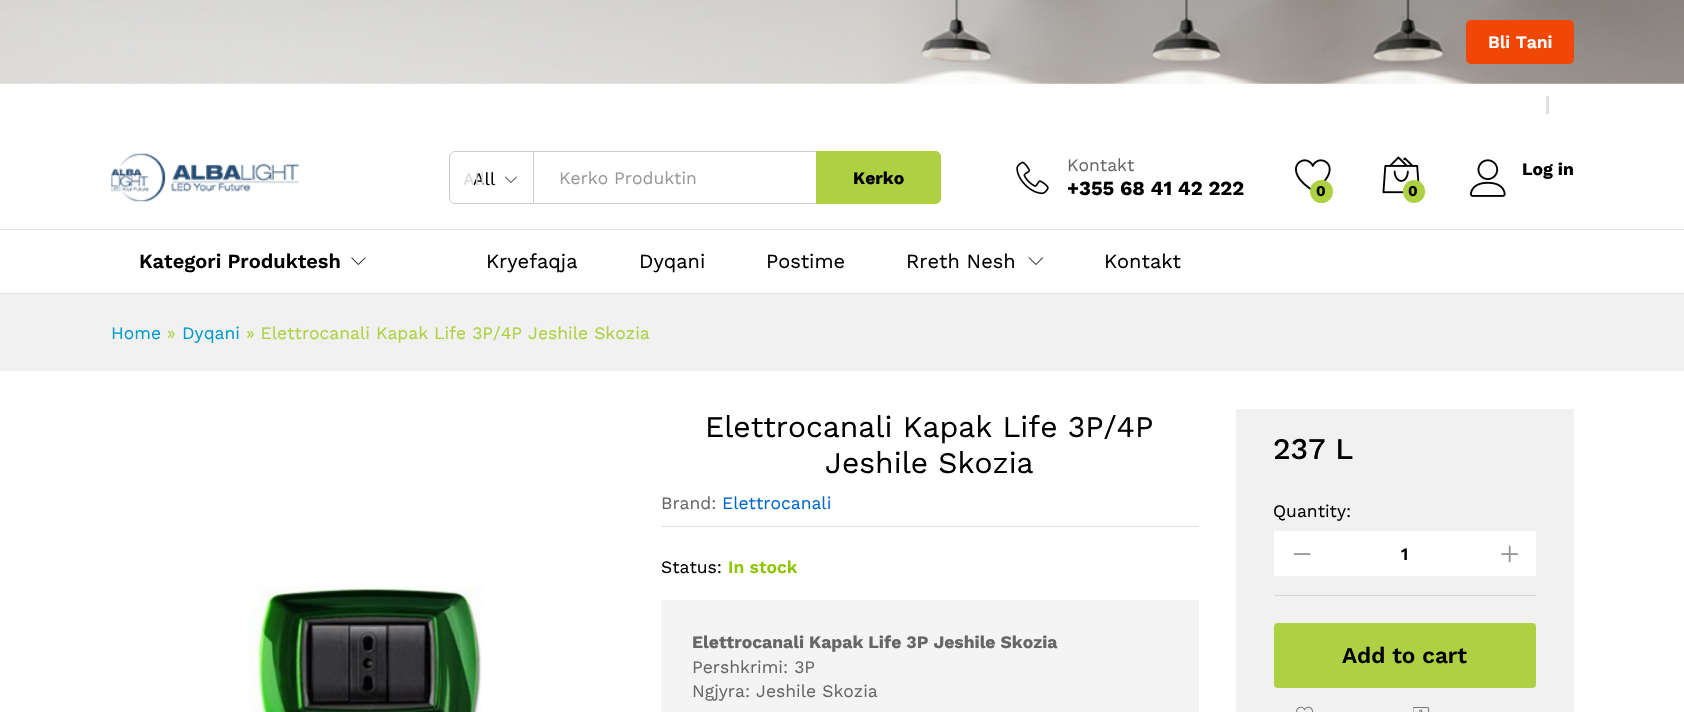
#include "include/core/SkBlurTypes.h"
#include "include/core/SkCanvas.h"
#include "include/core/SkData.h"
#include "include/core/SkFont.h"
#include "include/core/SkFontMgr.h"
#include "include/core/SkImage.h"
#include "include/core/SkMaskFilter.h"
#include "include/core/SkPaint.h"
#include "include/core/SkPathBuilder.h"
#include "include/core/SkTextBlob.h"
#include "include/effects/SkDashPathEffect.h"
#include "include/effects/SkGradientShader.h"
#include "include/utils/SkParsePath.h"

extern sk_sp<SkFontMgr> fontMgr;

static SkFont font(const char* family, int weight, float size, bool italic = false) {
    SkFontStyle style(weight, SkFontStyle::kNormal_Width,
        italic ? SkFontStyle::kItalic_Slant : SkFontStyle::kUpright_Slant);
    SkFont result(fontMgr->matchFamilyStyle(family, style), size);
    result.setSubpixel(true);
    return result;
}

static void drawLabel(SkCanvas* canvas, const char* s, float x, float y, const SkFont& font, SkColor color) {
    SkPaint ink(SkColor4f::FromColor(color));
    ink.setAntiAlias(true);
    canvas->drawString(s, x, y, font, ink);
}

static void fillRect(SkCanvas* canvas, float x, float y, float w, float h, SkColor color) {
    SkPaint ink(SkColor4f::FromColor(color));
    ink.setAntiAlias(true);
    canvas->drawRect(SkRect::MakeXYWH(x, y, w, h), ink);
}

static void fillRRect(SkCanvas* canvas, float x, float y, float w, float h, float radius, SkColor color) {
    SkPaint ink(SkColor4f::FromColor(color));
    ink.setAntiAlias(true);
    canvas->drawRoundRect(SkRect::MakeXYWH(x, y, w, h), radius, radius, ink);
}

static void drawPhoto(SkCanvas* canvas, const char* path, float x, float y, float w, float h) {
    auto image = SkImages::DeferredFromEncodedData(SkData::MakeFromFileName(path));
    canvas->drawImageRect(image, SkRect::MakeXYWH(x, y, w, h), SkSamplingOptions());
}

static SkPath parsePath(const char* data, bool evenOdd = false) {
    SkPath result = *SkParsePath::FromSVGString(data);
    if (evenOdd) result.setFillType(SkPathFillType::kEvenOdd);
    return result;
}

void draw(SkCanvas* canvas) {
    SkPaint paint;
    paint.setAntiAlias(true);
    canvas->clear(0xFFFFFFFF);
    drawPhoto(canvas, "assets/img1.png", 0, 0, 1684, 84);
    fillRRect(canvas, 1466, 20, 108, 44, 5, 0xFFF14705);
    SkFont font1 = font("Work Sans", 600, 17.5f);
    drawLabel(canvas, "Bli Tani", 1488, 48, font1, 0xFFFFFFFF);
    fillRect(canvas, 1546, 96, 3, 18, 0xFFE1E1E1);
    drawPhoto(canvas, "assets/img2.png", 111, 153, 188, 49);
    paint.setStroke(true);
    paint.setStrokeWidth(1);
    paint.setColor(0xFFCCCCCC);
    canvas->drawPath(parsePath("M455 151.5H533.5V203.5H455C452 203.5 449.5 201 449.5 198V157C449.5 154 452 151.5 455 151.5Z"), paint);
    SkFont font2 = font("Work Sans", 400, 17.5f);
    drawLabel(canvas, "All", 473, 185, font2, 0xFF000000);
    drawLabel(canvas, "All", 463, 185, font2, 0xFFD7D7D7);
    drawPhoto(canvas, "assets/img3.png", 505, 176, 12, 7);
    fillRect(canvas, 534, 151, 282, 1, 0xFFCCCCCC);
    fillRect(canvas, 534, 203, 282, 1, 0xFFCCCCCC);
    drawLabel(canvas, "Kerko Produktin", 559, 184, font2, 0xFF999999);
    paint.setStroke(false);
    paint.setColor(0xFFADD142);
    canvas->drawPath(parsePath("M816 151H935C938.5 151 941 153.5 941 157V198C941 201.5 938.5 204 935 204H816Z"), paint);
    SkFont font3 = font("Work Sans", 700, 17.5f);
    drawLabel(canvas, "Kerko", 853, 184, font3, 0xFF000000);
    drawPhoto(canvas, "assets/img4.png", 1016, 161, 33, 34);
    drawLabel(canvas, "Kontakt", 1067, 171, font2, 0xFF666666);
    SkFont font4 = font("Work Sans", 700, 20);
    drawLabel(canvas, "+355 68 41 42 222", 1067, 195, font4, 0xFF000000);
    drawPhoto(canvas, "assets/img5.png", 1470, 159, 36, 38);
    drawLabel(canvas, "Log in", 1522, 175, font3, 0xFF000000);
    drawPhoto(canvas, "assets/img6.png", 1295, 159, 36, 32);
    canvas->drawCircle(1321.5f, 191.5f, 11.5f, paint);
    SkFont font5 = font("Work Sans", 700, 15);
    drawLabel(canvas, "0", 1316, 196, font5, 0xFF000000);
    drawPhoto(canvas, "assets/img7.png", 1382, 156, 38, 38);
    fillRRect(canvas, 1403, 180, 22, 23, 11, 0xFFADD142);
    drawLabel(canvas, "0", 1408, 196, font5, 0xFF000000);
    fillRect(canvas, 0, 229, 1684, 1, 0xFFE1E1E1);
    fillRect(canvas, 0, 293, 1684, 1, 0xFFE1E1E1);
    SkFont font6 = font("Work Sans", 600, 20);
    drawLabel(canvas, "Kategori Produktesh", 139, 268, font6, 0xFF000000);
    drawPhoto(canvas, "assets/img8.png", 351, 257, 15, 8);
    SkFont font7 = font("Work Sans", 400, 20);
    drawLabel(canvas, "Kryefaqja", 486, 268, font7, 0xFF000000);
    drawLabel(canvas, "Dyqani", 639, 268, font7, 0xFF000000);
    drawLabel(canvas, "Postime", 766, 268, font7, 0xFF000000);
    drawLabel(canvas, "Rreth Nesh", 906, 268, font7, 0xFF000000);
    drawPhoto(canvas, "assets/img9.png", 1028, 257, 15, 8);
    drawLabel(canvas, "Kontakt", 1104, 268, font7, 0xFF000000);
    fillRect(canvas, 0, 294, 1684, 77, 0xFFF1F1F1);
    drawLabel(canvas, "Home", 111, 339, font2, 0xFF0099CC);
    drawLabel(canvas, "»", 167, 339, font2, 0xFFADD142);
    drawLabel(canvas, "Dyqani", 182, 339, font2, 0xFF0099CC);
    drawLabel(canvas, "» Elettrocanali Kapak Life 3P/4P Jeshile Skozia", 246, 339, font2, 0xFFADD142);
    drawPhoto(canvas, "assets/img10.png", 248, 586, 234, 126);
    fillRect(canvas, 661, 526, 538, 1, 0xFFE1E1E1);
    SkFont font8 = font("Work Sans", 400, 30);
    drawLabel(canvas, "Elettrocanali Kapak Life 3P/4P", 705, 437, font8, 0xFF000000);
    drawLabel(canvas, "Jeshile Skozia", 825, 473, font8, 0xFF000000);
    drawLabel(canvas, "Brand:", 661, 509, font2, 0xFF666666);
    drawLabel(canvas, "Elettrocanali", 722, 509, font2, 0xFF0066CC);
    drawLabel(canvas, "Status:", 661, 573, font2, 0xFF000000);
    drawLabel(canvas, "In stock", 728, 573, font1, 0xFF8BC500);
    fillRect(canvas, 661, 600, 538, 112, 0xFFF4F4F4);
    drawLabel(canvas, "Elettrocanali Kapak Life 3P Jeshile Skozia", 692, 648, font3, 0xFF666666);
    drawLabel(canvas, "Pershkrimi: 3P", 692, 673, font2, 0xFF666666);
    drawLabel(canvas, "Ngjyra: Jeshile Skozia", 692, 697, font2, 0xFF666666);
    fillRect(canvas, 1236, 409, 338, 303, 0xFFF1F1F1);
    SkFont font9 = font("Work Sans", 500, 30);
    drawLabel(canvas, "237 L", 1273, 459, font9, 0xFF000000);
    fillRect(canvas, 1274, 595, 262, 1, 0xFFD5D5D5);
    drawLabel(canvas, "Quantity:", 1273, 517, font2, 0xFF000000);
    fillRect(canvas, 1274, 531, 262, 45, 0xFFFFFFFF);
    drawPhoto(canvas, "assets/img11.png", 1293, 553, 18, 2);
    drawLabel(canvas, "1", 1401, 560, font1, 0xFF000000);
    drawPhoto(canvas, "assets/img12.png", 1501, 545, 18, 18);
    fillRRect(canvas, 1274, 623, 262, 65, 4, 0xFFADD142);
    SkFont font10 = font("Work Sans", 600, 22.5f);
    drawLabel(canvas, "Add to cart", 1342, 663, font10, 0xFF000000);
    drawPhoto(canvas, "assets/img13.png", 1296, 706, 17, 6);
    drawPhoto(canvas, "assets/img14.png", 1413, 707, 17, 5);
}
